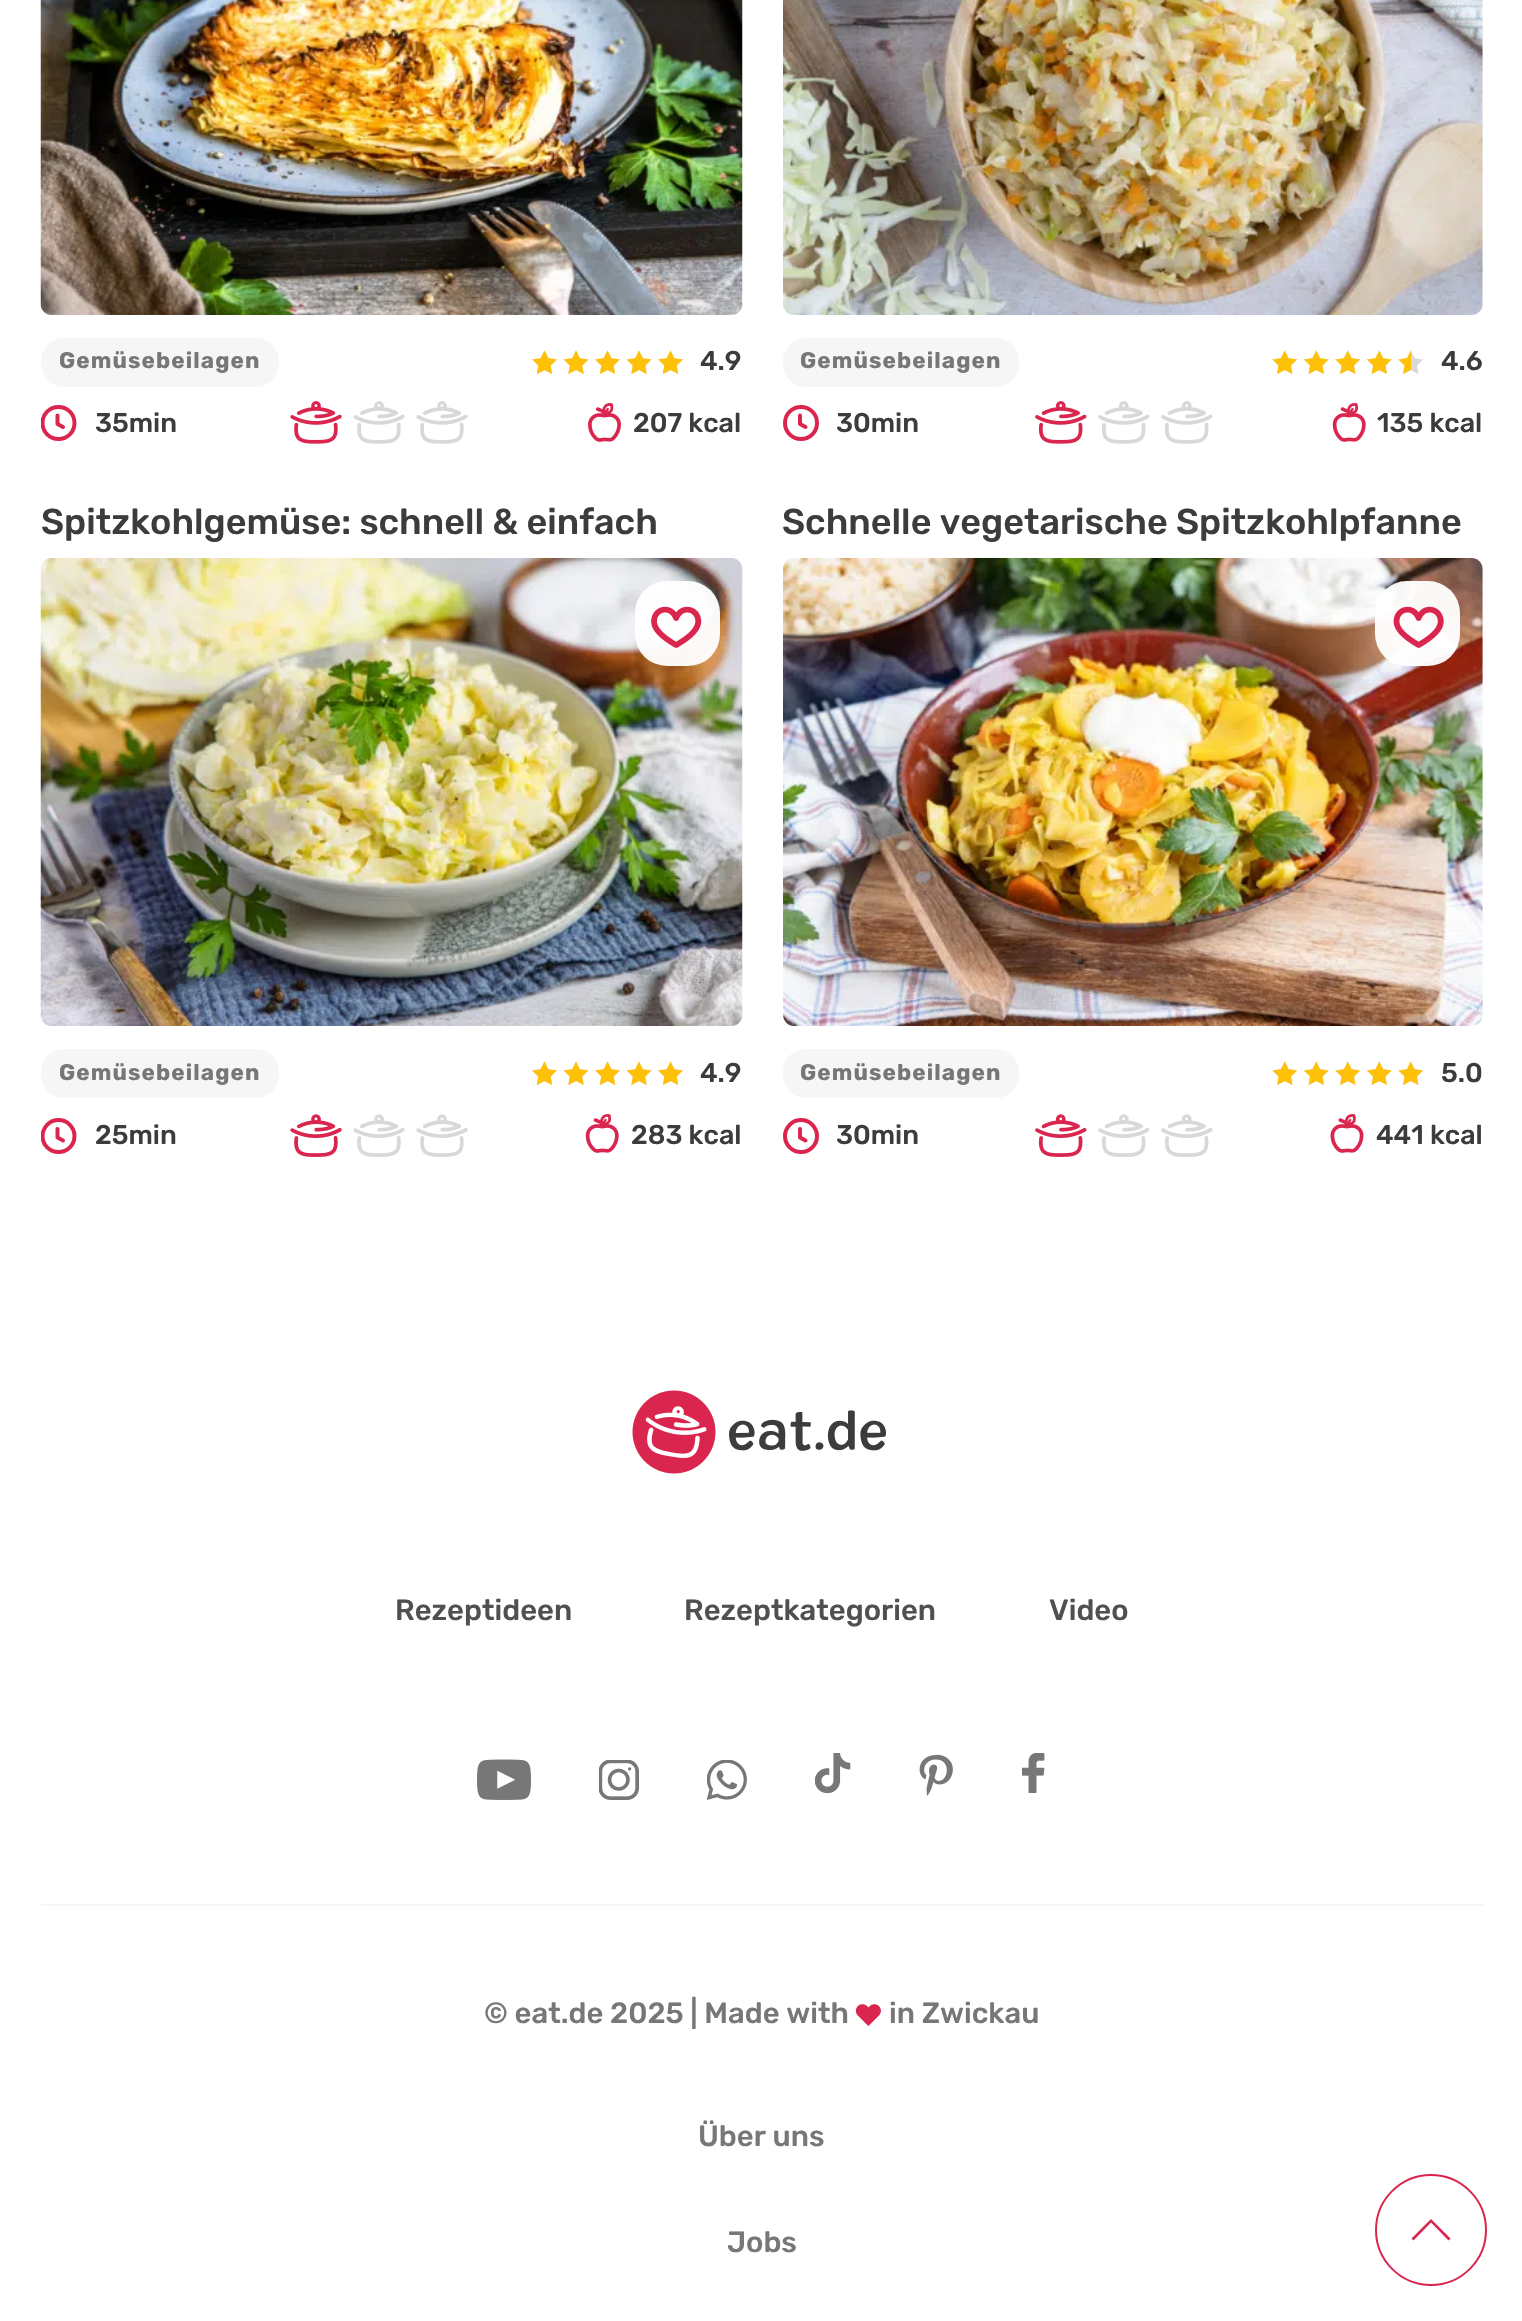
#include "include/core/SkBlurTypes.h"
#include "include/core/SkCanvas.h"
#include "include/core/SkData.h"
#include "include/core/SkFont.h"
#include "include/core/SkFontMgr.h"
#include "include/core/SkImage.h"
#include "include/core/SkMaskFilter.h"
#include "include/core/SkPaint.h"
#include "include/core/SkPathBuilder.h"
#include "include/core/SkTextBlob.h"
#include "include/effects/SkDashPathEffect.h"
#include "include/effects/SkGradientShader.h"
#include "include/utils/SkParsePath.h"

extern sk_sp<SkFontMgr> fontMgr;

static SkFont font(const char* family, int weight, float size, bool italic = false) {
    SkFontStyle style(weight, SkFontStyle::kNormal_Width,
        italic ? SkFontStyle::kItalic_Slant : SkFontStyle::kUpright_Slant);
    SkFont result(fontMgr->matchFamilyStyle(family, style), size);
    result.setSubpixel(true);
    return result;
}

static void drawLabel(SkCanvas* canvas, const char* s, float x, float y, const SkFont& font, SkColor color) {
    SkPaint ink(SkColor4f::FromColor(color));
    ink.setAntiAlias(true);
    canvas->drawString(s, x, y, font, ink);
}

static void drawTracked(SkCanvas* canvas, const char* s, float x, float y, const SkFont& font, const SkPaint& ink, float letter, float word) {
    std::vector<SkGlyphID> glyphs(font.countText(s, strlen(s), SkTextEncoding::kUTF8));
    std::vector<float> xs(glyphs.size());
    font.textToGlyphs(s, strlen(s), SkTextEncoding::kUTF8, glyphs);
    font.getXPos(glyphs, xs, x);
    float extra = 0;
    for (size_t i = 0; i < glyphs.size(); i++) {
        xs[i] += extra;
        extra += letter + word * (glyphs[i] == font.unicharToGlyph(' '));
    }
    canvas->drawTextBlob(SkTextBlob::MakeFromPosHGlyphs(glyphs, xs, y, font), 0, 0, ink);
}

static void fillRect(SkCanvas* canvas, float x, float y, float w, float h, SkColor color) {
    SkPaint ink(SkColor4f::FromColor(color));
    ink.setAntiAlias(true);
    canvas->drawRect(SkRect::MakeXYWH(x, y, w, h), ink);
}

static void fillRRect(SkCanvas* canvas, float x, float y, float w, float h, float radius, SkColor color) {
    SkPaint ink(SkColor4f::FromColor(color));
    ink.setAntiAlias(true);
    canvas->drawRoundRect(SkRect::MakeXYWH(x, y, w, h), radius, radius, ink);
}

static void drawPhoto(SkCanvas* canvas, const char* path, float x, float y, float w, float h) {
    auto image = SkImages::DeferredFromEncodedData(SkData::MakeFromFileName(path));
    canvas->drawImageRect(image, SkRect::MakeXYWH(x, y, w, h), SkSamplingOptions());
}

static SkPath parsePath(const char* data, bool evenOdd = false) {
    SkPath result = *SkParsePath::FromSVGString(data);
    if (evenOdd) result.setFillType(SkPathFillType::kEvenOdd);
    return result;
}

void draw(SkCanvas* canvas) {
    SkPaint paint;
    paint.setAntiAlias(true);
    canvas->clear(0xFFFFFFFF);
    drawPhoto(canvas, "assets/img1.png", 40, 0, 703, 315);
    fillRRect(canvas, 41, 338, 238, 49, 23, 0xFFF6F6F6);
    SkFont font1 = font("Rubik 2", 300, 22.5f);
    paint.setColor(0xFF777777);
    drawTracked(canvas, "Gemüsebeilagen", 59, 368, font1, paint, 1.1f, 0);
    drawPhoto(canvas, "assets/img2.png", 532, 350, 25, 24);
    drawPhoto(canvas, "assets/img3.png", 532, 350, 25, 24);
    drawPhoto(canvas, "assets/img5.png", 564, 351, 24, 23);
    drawPhoto(canvas, "assets/img4.png", 563, 350, 26, 24);
    drawPhoto(canvas, "assets/img2.png", 595, 350, 25, 24);
    drawPhoto(canvas, "assets/img3.png", 595, 350, 25, 24);
    drawPhoto(canvas, "assets/img5.png", 627, 351, 24, 23);
    drawPhoto(canvas, "assets/img4.png", 626, 350, 26, 24);
    drawPhoto(canvas, "assets/img2.png", 658, 350, 25, 24);
    drawPhoto(canvas, "assets/img3.png", 658, 350, 25, 24);
    SkFont font2 = font("Rubik", 300, 27);
    drawLabel(canvas, "4.9", 700, 370, font2, 0xFF3C3C3C);
    canvas->save();
    canvas->clipRect(SkRect::MakeXYWH(41, 405, 36, 36));
    paint.setStroke(true);
    paint.setStrokeWidth(4);
    paint.setStrokeCap(SkPaint::kRound_Cap);
    paint.setStrokeJoin(SkPaint::kRound_Join);
    paint.setColor(0xFFDA254E);
    canvas->drawPath(parsePath("M58.5 439C67.5 439 74.5 432 74.5 423C74.5 414 67.5 407 58.5 407C49.5 407 42.5 414 42.5 423C42.5 432 49.5 439 58.5 439Z"), paint);
    canvas->restore();
    canvas->drawPath(parsePath("M57.5 415.5V424L63 427"), paint);
    drawLabel(canvas, "35min", 95, 432, font2, 0xFF3C3C3C);
    drawPhoto(canvas, "assets/img6.png", 290, 401, 52, 43);
    drawPhoto(canvas, "assets/img7.png", 353, 401, 52, 43);
    drawPhoto(canvas, "assets/img7.png", 416, 401, 52, 43);
    drawPhoto(canvas, "assets/img8.png", 588, 403, 33, 39);
    drawLabel(canvas, "207 kcal", 633, 432, font2, 0xFF3C3C3C);
    drawPhoto(canvas, "assets/img9.png", 783, 0, 700, 315);
    fillRRect(canvas, 783, 338, 236, 49, 23, 0xFFF6F6F6);
    paint.setStroke(false);
    paint.setColor(0xFF777777);
    drawTracked(canvas, "Gemüsebeilagen", 800, 368, font1, paint, 1.1f, 0);
    drawPhoto(canvas, "assets/img10.png", 1272, 350, 25, 24);
    drawPhoto(canvas, "assets/img11.png", 1272, 350, 25, 24);
    drawPhoto(canvas, "assets/img12.png", 1304, 350, 25, 24);
    drawPhoto(canvas, "assets/img13.png", 1304, 350, 25, 24);
    drawPhoto(canvas, "assets/img10.png", 1335, 350, 25, 24);
    drawPhoto(canvas, "assets/img11.png", 1335, 350, 25, 24);
    drawPhoto(canvas, "assets/img12.png", 1367, 350, 25, 24);
    drawPhoto(canvas, "assets/img13.png", 1367, 350, 25, 24);
    drawPhoto(canvas, "assets/img10.png", 1398, 350, 25, 24);
    paint.setColor(0xFFFFC107);
    canvas->drawPath(parsePath("M1411 350.5L1407 358L1398.5 359.5L1404.5 365.5L1403 374L1411 370Z"), paint);
    drawLabel(canvas, "4.6", 1441, 370, font2, 0xFF3C3C3C);
    paint.setStroke(true);
    paint.setColor(0xFFDA254E);
    canvas->drawPath(parsePath("M801 439C810 439 817 432 817 423C817 414 810 407 801 407C792 407 785 414 785 423C785 432 792 439 801 439ZM800 415.5V424L805.5 427"), paint);
    drawLabel(canvas, "30min", 836, 432, font2, 0xFF3C3C3C);
    drawPhoto(canvas, "assets/img14.png", 1035, 401, 52, 43);
    drawPhoto(canvas, "assets/img15.png", 1098, 401, 52, 43);
    drawPhoto(canvas, "assets/img15.png", 1161, 401, 52, 43);
    drawPhoto(canvas, "assets/img16.png", 1332, 403, 34, 39);
    drawLabel(canvas, "135 kcal", 1377, 432, font2, 0xFF3C3C3C);
    SkFont font3 = font("Rubik", 300, 36);
    drawLabel(canvas, "Spitzkohlgemüse: schnell & einfach", 41, 534, font3, 0xFF3C3C3C);
    drawPhoto(canvas, "assets/img17.png", 40, 558, 703, 468);
    fillRRect(canvas, 635, 581, 85, 85, 32, 0xF2FFFFFF);
    drawPhoto(canvas, "assets/img18.png", 651, 606, 51, 42);
    fillRRect(canvas, 41, 1049, 238, 49, 23, 0xFFF6F6F6);
    paint.setStroke(false);
    paint.setColor(0xFF777777);
    drawTracked(canvas, "Gemüsebeilagen", 59, 1080, font1, paint, 1.1f, 0);
    drawPhoto(canvas, "assets/img2.png", 532, 1061, 25, 24);
    drawPhoto(canvas, "assets/img3.png", 532, 1061, 25, 24);
    drawPhoto(canvas, "assets/img5.png", 564, 1062, 24, 23);
    drawPhoto(canvas, "assets/img4.png", 563, 1061, 26, 24);
    drawPhoto(canvas, "assets/img2.png", 595, 1061, 25, 24);
    drawPhoto(canvas, "assets/img3.png", 595, 1061, 25, 24);
    drawPhoto(canvas, "assets/img5.png", 627, 1062, 24, 23);
    drawPhoto(canvas, "assets/img4.png", 626, 1061, 26, 24);
    drawPhoto(canvas, "assets/img2.png", 658, 1061, 25, 24);
    drawPhoto(canvas, "assets/img3.png", 658, 1061, 25, 24);
    drawLabel(canvas, "4.9", 700, 1082, font2, 0xFF3C3C3C);
    canvas->save();
    canvas->clipRect(SkRect::MakeXYWH(41, 1118, 36, 36));
    paint.setStroke(true);
    paint.setColor(0xFFDA254E);
    canvas->drawPath(parsePath("M58.5 1152C67.5 1152 74.5 1145 74.5 1136C74.5 1127.5 67.5 1120 58.5 1120C49.5 1120 42.5 1127.5 42.5 1136C42.5 1145 49.5 1152 58.5 1152Z"), paint);
    canvas->restore();
    canvas->drawPath(parsePath("M57.5 1129V1137.5L63 1140.5"), paint);
    drawLabel(canvas, "25min", 95, 1144, font2, 0xFF3C3C3C);
    drawPhoto(canvas, "assets/img19.png", 290, 1114, 52, 43);
    drawPhoto(canvas, "assets/img20.png", 353, 1114, 52, 43);
    drawPhoto(canvas, "assets/img20.png", 416, 1114, 52, 43);
    drawPhoto(canvas, "assets/img16.png", 585, 1114, 34, 39);
    drawLabel(canvas, "283 kcal", 631, 1144, font2, 0xFF3C3C3C);
    drawLabel(canvas, "Schnelle vegetarische Spitzkohlpfanne", 782, 534, font3, 0xFF3C3C3C);
    drawPhoto(canvas, "assets/img21.png", 783, 558, 700, 468);
    fillRRect(canvas, 1375, 581, 85, 85, 32, 0xF2FFFFFF);
    drawPhoto(canvas, "assets/img22.png", 1393, 606, 51, 42);
    fillRRect(canvas, 783, 1049, 236, 49, 23, 0xFFF6F6F6);
    paint.setStroke(false);
    paint.setColor(0xFF777777);
    drawTracked(canvas, "Gemüsebeilagen", 800, 1080, font1, paint, 1.1f, 0);
    drawPhoto(canvas, "assets/img10.png", 1272, 1061, 25, 24);
    drawPhoto(canvas, "assets/img11.png", 1272, 1061, 25, 24);
    drawPhoto(canvas, "assets/img12.png", 1304, 1061, 25, 24);
    drawPhoto(canvas, "assets/img13.png", 1304, 1061, 25, 24);
    drawPhoto(canvas, "assets/img10.png", 1335, 1061, 25, 24);
    drawPhoto(canvas, "assets/img11.png", 1335, 1061, 25, 24);
    drawPhoto(canvas, "assets/img12.png", 1367, 1061, 25, 24);
    drawPhoto(canvas, "assets/img13.png", 1367, 1061, 25, 24);
    drawPhoto(canvas, "assets/img10.png", 1398, 1061, 25, 24);
    drawPhoto(canvas, "assets/img11.png", 1398, 1061, 25, 24);
    drawLabel(canvas, "5.0", 1441, 1082, font2, 0xFF3C3C3C);
    paint.setStroke(true);
    paint.setColor(0xFFDA254E);
    canvas->drawPath(parsePath("M801 1152C810 1152 817 1145 817 1136C817 1127.5 810 1120 801 1120C792 1120 785 1127.5 785 1136C785 1145 792 1152 801 1152ZM800 1129V1137.5L805.5 1140.5"), paint);
    drawLabel(canvas, "30min", 836, 1144, font2, 0xFF3C3C3C);
    drawPhoto(canvas, "assets/img23.png", 1035, 1114, 52, 43);
    drawPhoto(canvas, "assets/img24.png", 1098, 1114, 52, 43);
    drawPhoto(canvas, "assets/img24.png", 1161, 1114, 52, 43);
    drawPhoto(canvas, "assets/img25.png", 1330, 1114, 34, 39);
    drawLabel(canvas, "441 kcal", 1376, 1144, font2, 0xFF3C3C3C);
    drawPhoto(canvas, "assets/img26.png", 632, 1390, 255, 84);
    SkFont font4 = font("Rubik", 300, 29.25f);
    drawLabel(canvas, "Rezeptideen", 395, 1620, font4, 0xFF505050);
    drawLabel(canvas, "Rezeptkategorien", 684, 1620, font4, 0xFF505050);
    drawLabel(canvas, "Video", 1049, 1620, font4, 0xFF505050);
    drawPhoto(canvas, "assets/img27.png", 477, 1759, 54, 41);
    drawPhoto(canvas, "assets/img28.png", 599, 1760, 40, 40);
    drawPhoto(canvas, "assets/img29.png", 707, 1760, 40, 40);
    drawPhoto(canvas, "assets/img30.png", 815, 1753, 36, 40);
    drawPhoto(canvas, "assets/img31.png", 919, 1754, 34, 42);
    drawPhoto(canvas, "assets/img32.png", 1022, 1753, 23, 40);
    fillRect(canvas, 41, 1904, 1442, 2, 0xFFF5F5F5);
    drawLabel(canvas, "© eat.de 2025 | Made with", 484, 2023, font4, 0xFF777777);
    drawPhoto(canvas, "assets/img33.png", 855, 2004, 26, 22);
    drawLabel(canvas, "in Zwickau", 889, 2023, font4, 0xFF777777);
    drawLabel(canvas, "Über uns", 698, 2146, font4, 0xFF777777);
    drawLabel(canvas, "Jobs", 727, 2252, font4, 0xFF777777);
    paint.setStrokeWidth(2);
    paint.setStrokeCap(SkPaint::kButt_Cap);
    paint.setStrokeJoin(SkPaint::kMiter_Join);
    canvas->drawCircle(1431, 2230, 55, paint);
    paint.setStroke(false);
    canvas->drawPath(parsePath("M1413.5 2240.5L1431 2222.5L1448.5 2240.5L1450.5 2238.5L1431 2219L1411.5 2238.5Z"), paint);
}
